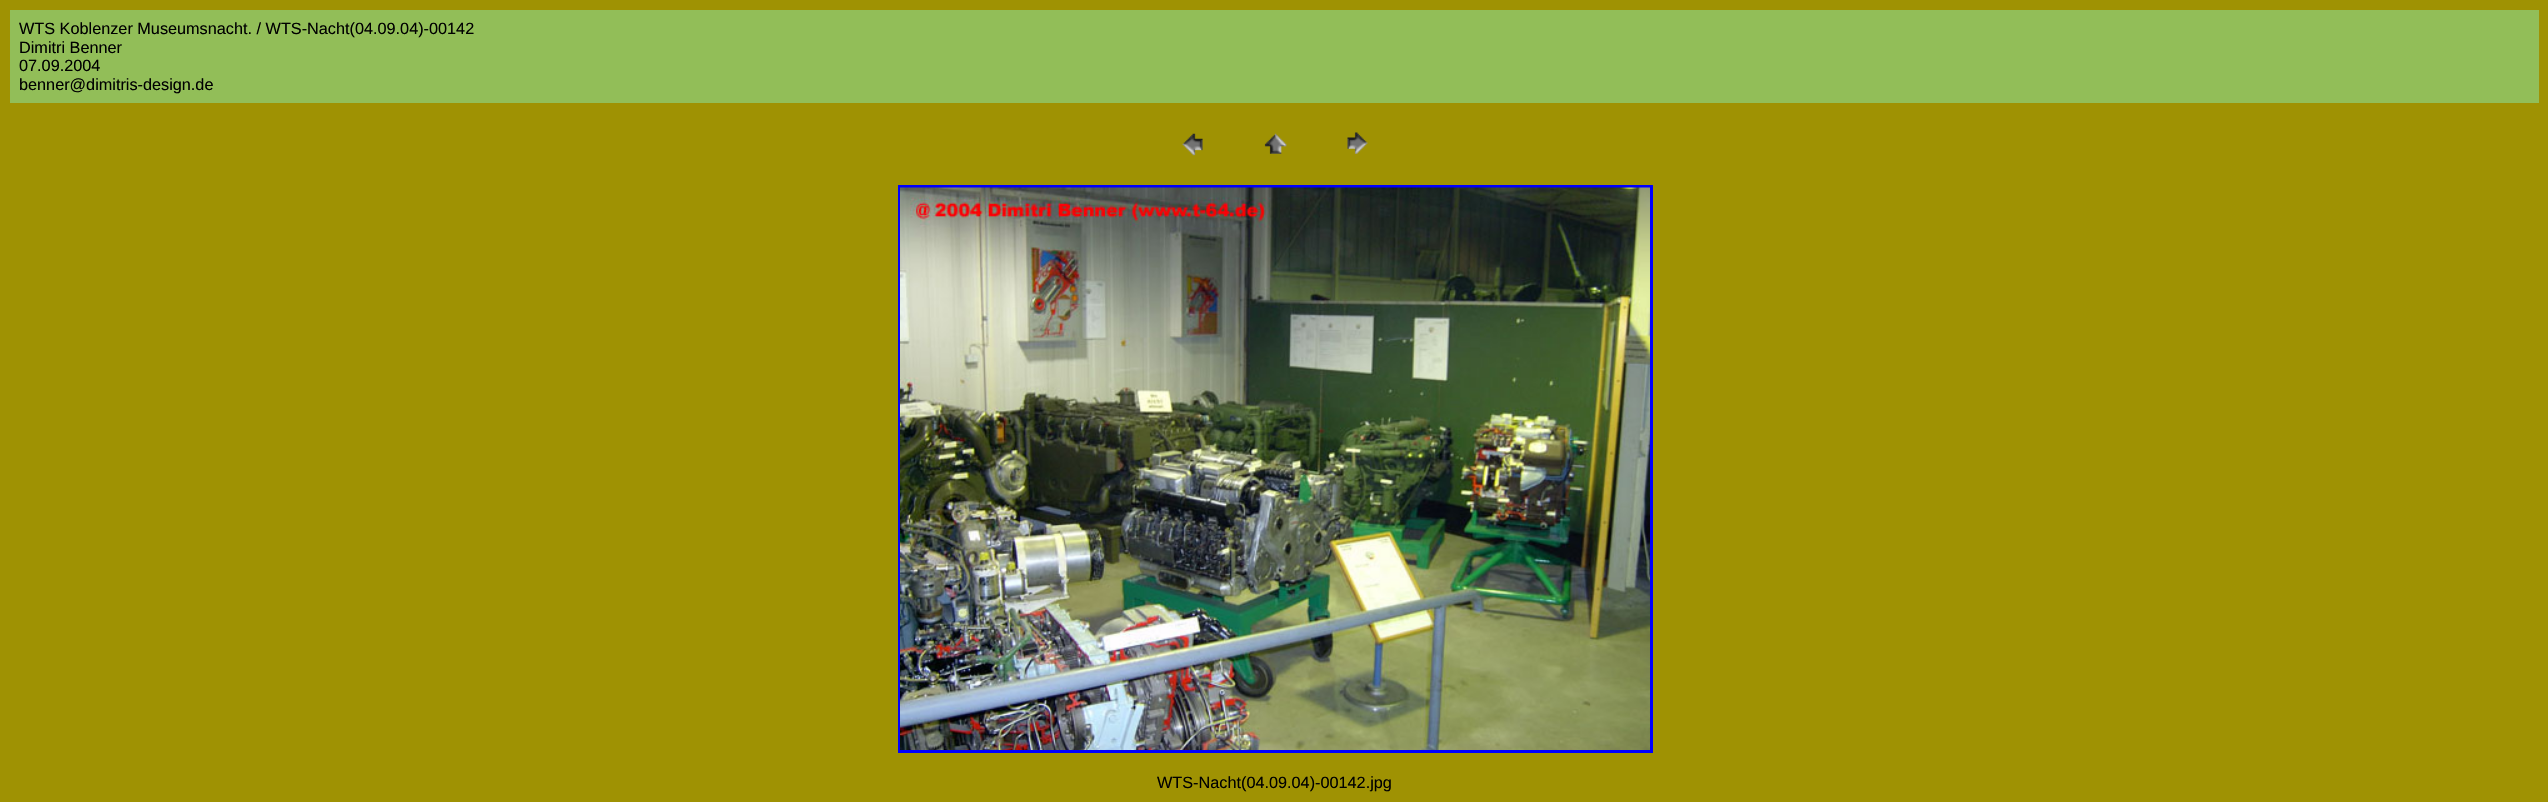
#include "include/core/SkBlurTypes.h"
#include "include/core/SkCanvas.h"
#include "include/core/SkData.h"
#include "include/core/SkFont.h"
#include "include/core/SkFontMgr.h"
#include "include/core/SkImage.h"
#include "include/core/SkMaskFilter.h"
#include "include/core/SkPaint.h"
#include "include/core/SkPathBuilder.h"
#include "include/core/SkTextBlob.h"
#include "include/effects/SkDashPathEffect.h"
#include "include/effects/SkGradientShader.h"
#include "include/utils/SkParsePath.h"

extern sk_sp<SkFontMgr> fontMgr;

static SkFont font(const char* family, int weight, float size, bool italic = false) {
    SkFontStyle style(weight, SkFontStyle::kNormal_Width,
        italic ? SkFontStyle::kItalic_Slant : SkFontStyle::kUpright_Slant);
    SkFont result(fontMgr->matchFamilyStyle(family, style), size);
    result.setSubpixel(true);
    return result;
}

static void drawLabel(SkCanvas* canvas, const char* s, float x, float y, const SkFont& font, SkColor color) {
    SkPaint ink(SkColor4f::FromColor(color));
    ink.setAntiAlias(true);
    canvas->drawString(s, x, y, font, ink);
}

static void fillRect(SkCanvas* canvas, float x, float y, float w, float h, SkColor color) {
    SkPaint ink(SkColor4f::FromColor(color));
    ink.setAntiAlias(true);
    canvas->drawRect(SkRect::MakeXYWH(x, y, w, h), ink);
}

static void drawPhoto(SkCanvas* canvas, const char* path, float x, float y, float w, float h) {
    auto image = SkImages::DeferredFromEncodedData(SkData::MakeFromFileName(path));
    canvas->drawImageRect(image, SkRect::MakeXYWH(x, y, w, h), SkSamplingOptions());
}

void draw(SkCanvas* canvas) {
    SkPaint paint;
    paint.setAntiAlias(true);
    canvas->clear(0xFF9F9203);
    fillRect(canvas, 10, 10, 2529, 93, 0xFF92BE58);
    SkFont font1 = font("Liberation Sans", 400, 16.25f);
    drawLabel(canvas, "WTS Koblenzer Museumsnacht. / WTS-Nacht(04.09.04)-00142", 19, 34, font1, 0xFF000000);
    drawLabel(canvas, "Dimitri Benner", 19, 53, font1, 0xFF000000);
    drawLabel(canvas, "07.09.2004", 19, 71, font1, 0xFF000000);
    drawLabel(canvas, "benner@dimitris-design.de", 19, 90, font1, 0xFF000000);
    drawPhoto(canvas, "assets/img1.png", 1182, 133, 21, 23);
    drawPhoto(canvas, "assets/img2.png", 1264, 133, 23, 21);
    drawPhoto(canvas, "assets/img3.png", 1347, 132, 21, 22);
    paint.setStroke(true);
    paint.setStrokeWidth(3);
    paint.setColor(0xFF0000FF);
    canvas->drawRect(SkRect::MakeXYWH(899.5f, 186.5f, 752, 565), paint);
    drawPhoto(canvas, "assets/img4.png", 900, 187, 750, 563);
    drawLabel(canvas, "WTS-Nacht(04.09.04)-00142.jpg", 1157, 788, font1, 0xFF000000);
}
